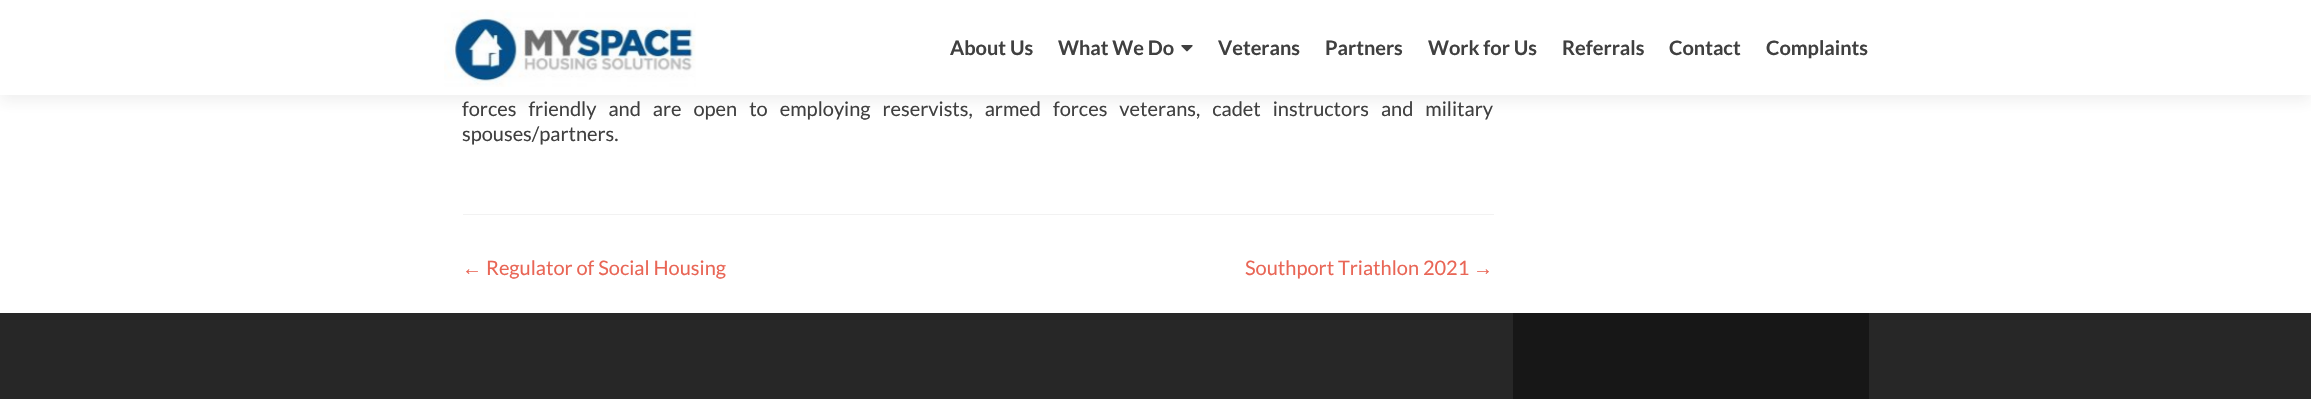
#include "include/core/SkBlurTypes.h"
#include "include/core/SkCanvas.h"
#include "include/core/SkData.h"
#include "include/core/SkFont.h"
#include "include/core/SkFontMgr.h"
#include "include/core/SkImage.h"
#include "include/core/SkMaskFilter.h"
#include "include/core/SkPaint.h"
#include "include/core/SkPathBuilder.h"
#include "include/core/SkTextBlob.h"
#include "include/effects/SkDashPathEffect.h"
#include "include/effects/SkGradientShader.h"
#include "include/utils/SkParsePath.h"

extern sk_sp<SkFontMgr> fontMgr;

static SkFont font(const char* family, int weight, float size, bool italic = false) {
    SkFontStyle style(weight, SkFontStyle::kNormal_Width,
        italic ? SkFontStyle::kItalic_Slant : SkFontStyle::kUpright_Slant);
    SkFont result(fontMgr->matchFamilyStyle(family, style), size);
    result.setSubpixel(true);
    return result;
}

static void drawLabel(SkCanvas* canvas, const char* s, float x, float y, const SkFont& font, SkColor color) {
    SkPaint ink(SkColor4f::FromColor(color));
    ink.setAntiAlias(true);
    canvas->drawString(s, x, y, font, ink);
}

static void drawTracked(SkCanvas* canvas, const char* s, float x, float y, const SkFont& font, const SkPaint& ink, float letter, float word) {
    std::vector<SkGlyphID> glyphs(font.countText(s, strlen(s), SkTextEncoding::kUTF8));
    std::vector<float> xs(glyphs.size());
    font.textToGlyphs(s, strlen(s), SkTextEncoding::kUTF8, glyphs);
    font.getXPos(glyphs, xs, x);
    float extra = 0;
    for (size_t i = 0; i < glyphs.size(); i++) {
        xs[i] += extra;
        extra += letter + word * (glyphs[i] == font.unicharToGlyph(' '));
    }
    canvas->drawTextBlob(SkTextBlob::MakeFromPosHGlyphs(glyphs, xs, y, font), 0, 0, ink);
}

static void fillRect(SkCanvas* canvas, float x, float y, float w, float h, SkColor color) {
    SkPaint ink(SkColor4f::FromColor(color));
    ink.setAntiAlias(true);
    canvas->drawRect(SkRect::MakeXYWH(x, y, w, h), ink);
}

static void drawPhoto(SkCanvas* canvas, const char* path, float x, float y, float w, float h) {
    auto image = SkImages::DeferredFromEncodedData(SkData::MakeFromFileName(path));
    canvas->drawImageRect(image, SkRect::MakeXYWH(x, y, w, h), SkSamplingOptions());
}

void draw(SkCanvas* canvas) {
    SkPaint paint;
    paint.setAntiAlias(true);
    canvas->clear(0xFFFFFFFF);
    paint.setColor(0x14323232);
    paint.setMaskFilter(SkMaskFilter::MakeBlur(kNormal_SkBlurStyle, 7));
    canvas->drawRect(SkRect::MakeXYWH(0, 6, 2311, 95), paint);
    paint.setMaskFilter(nullptr);
    fillRect(canvas, 0, 0, 2311, 95, 0xFFFFFFFF);
    drawPhoto(canvas, "assets/img1.png", 444, 10, 252, 77);
    SkFont font1 = font("Lato", 700, 20);
    drawLabel(canvas, "About Us", 950, 55, font1, 0xFF404040);
    drawLabel(canvas, "What We Do", 1058, 55, font1, 0xFF404040);
    drawPhoto(canvas, "assets/img2.png", 1181, 45, 12, 7);
    drawLabel(canvas, "Veterans", 1218, 55, font1, 0xFF404040);
    drawLabel(canvas, "Partners", 1325, 55, font1, 0xFF404040);
    drawLabel(canvas, "Work for Us", 1428, 55, font1, 0xFF404040);
    drawLabel(canvas, "Referrals", 1562, 55, font1, 0xFF404040);
    drawLabel(canvas, "Contact", 1669, 55, font1, 0xFF404040);
    drawLabel(canvas, "Complaints", 1766, 55, font1, 0xFF404040);
    fillRect(canvas, 463, 214, 1031, 1, 0xFFF2F2F2);
    SkFont font2 = font("Lato", 400, 20);
    paint.setColor(0xFF404040);
    drawTracked(canvas, "forces friendly and are open to employing reservists, armed forces veterans, cadet instructors and military", 462, 116, font2, paint, 0, 8.1f);
    drawLabel(canvas, "spouses/partners.", 462, 141, font2, 0xFF404040);
    SkFont font3 = font("Liberation Sans", 400, 20);
    drawLabel(canvas, "←", 462, 275, font3, 0xFFE96656);
    drawLabel(canvas, "Regulator of Social Housing", 486, 275, font2, 0xFFE96656);
    drawLabel(canvas, "Southport Triathlon 2021", 1245, 275, font2, 0xFFE96656);
    drawLabel(canvas, "→", 1473, 275, font3, 0xFFE96656);
    fillRect(canvas, 0, 313, 2311, 86, 0xFF272727);
    fillRect(canvas, 1513, 313, 356, 86, 0xFF171717);
}
